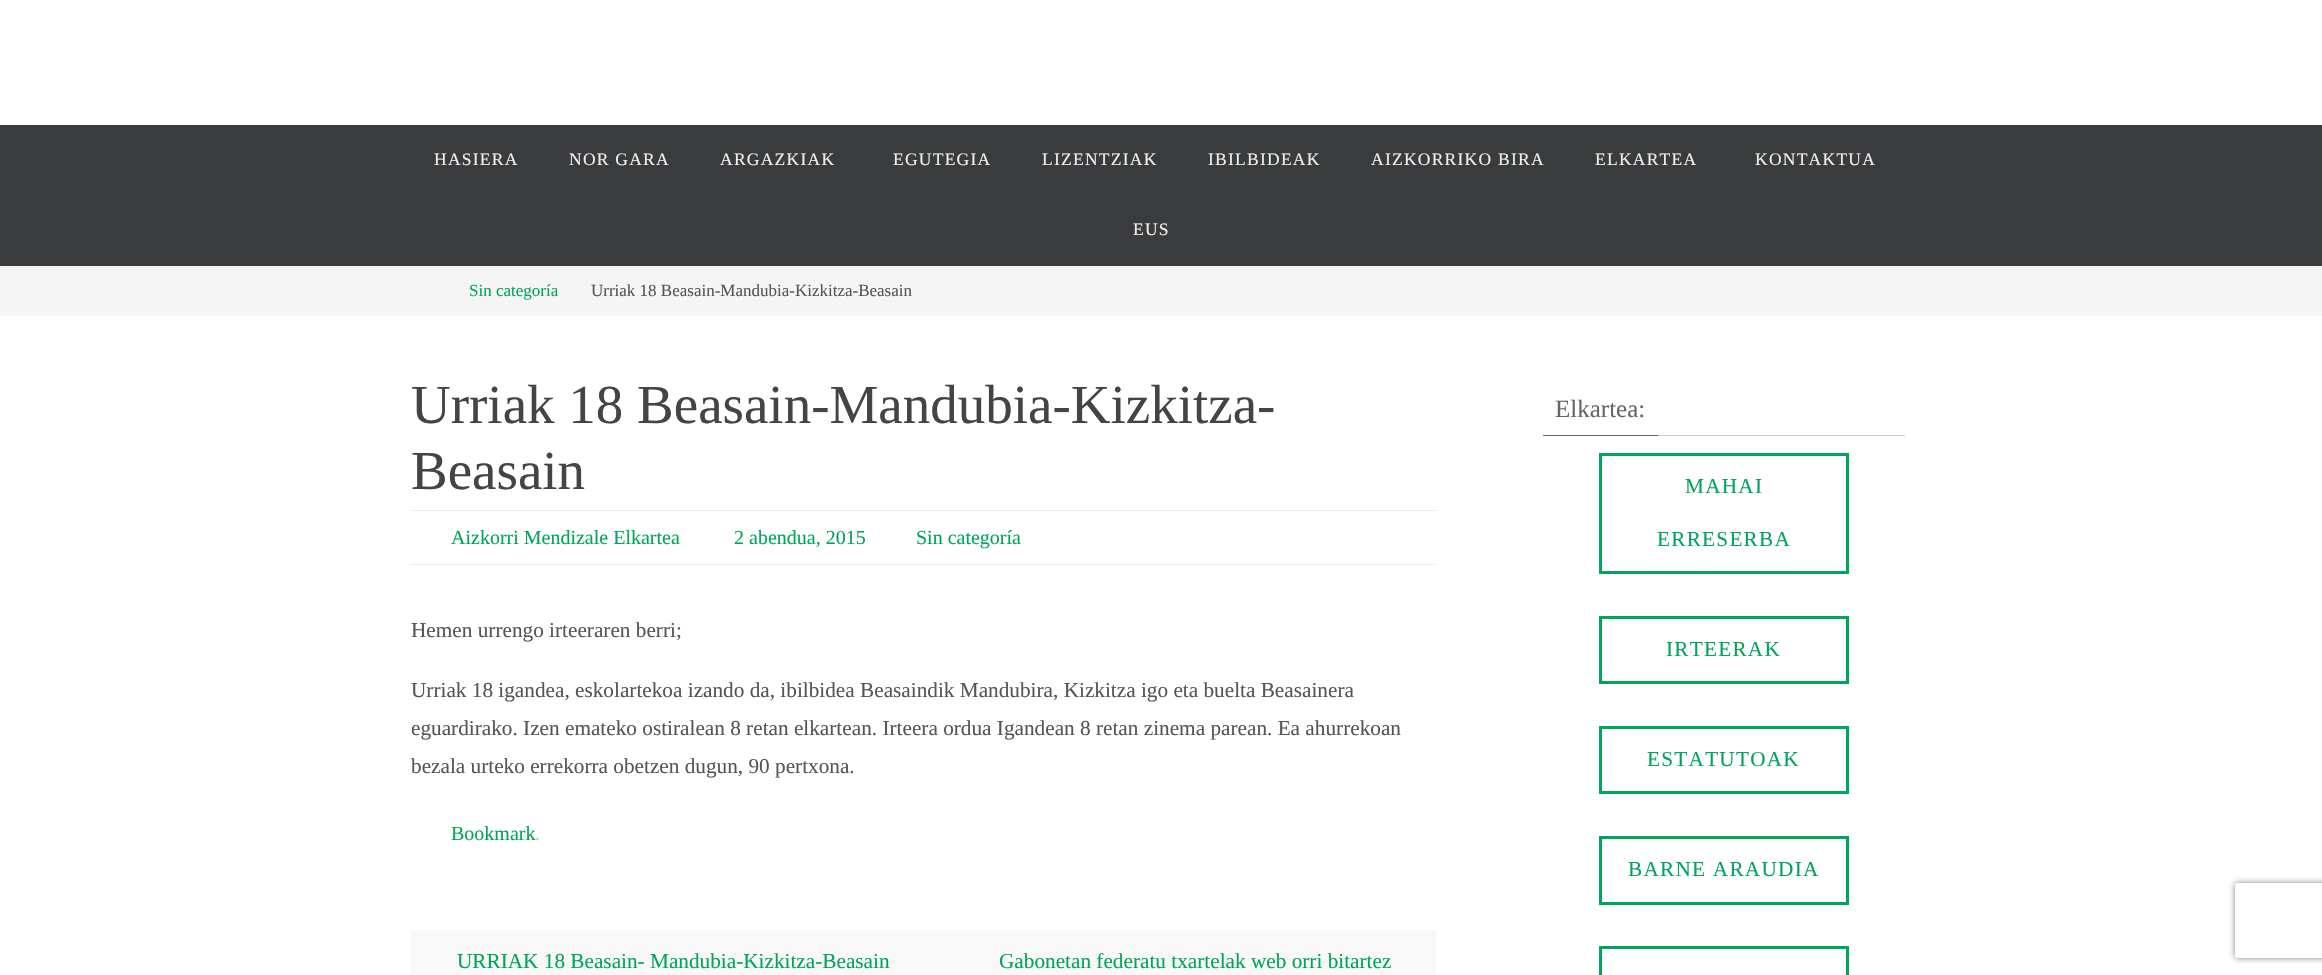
#include "include/core/SkBlurTypes.h"
#include "include/core/SkCanvas.h"
#include "include/core/SkData.h"
#include "include/core/SkFont.h"
#include "include/core/SkFontMgr.h"
#include "include/core/SkImage.h"
#include "include/core/SkMaskFilter.h"
#include "include/core/SkPaint.h"
#include "include/core/SkPathBuilder.h"
#include "include/core/SkTextBlob.h"
#include "include/effects/SkDashPathEffect.h"
#include "include/effects/SkGradientShader.h"
#include "include/utils/SkParsePath.h"

extern sk_sp<SkFontMgr> fontMgr;

static SkFont font(const char* family, int weight, float size, bool italic = false) {
    SkFontStyle style(weight, SkFontStyle::kNormal_Width,
        italic ? SkFontStyle::kItalic_Slant : SkFontStyle::kUpright_Slant);
    SkFont result(fontMgr->matchFamilyStyle(family, style), size);
    result.setSubpixel(true);
    return result;
}

static void drawLabel(SkCanvas* canvas, const char* s, float x, float y, const SkFont& font, SkColor color) {
    SkPaint ink(SkColor4f::FromColor(color));
    ink.setAntiAlias(true);
    canvas->drawString(s, x, y, font, ink);
}

static void drawTracked(SkCanvas* canvas, const char* s, float x, float y, const SkFont& font, const SkPaint& ink, float letter, float word) {
    std::vector<SkGlyphID> glyphs(font.countText(s, strlen(s), SkTextEncoding::kUTF8));
    std::vector<float> xs(glyphs.size());
    font.textToGlyphs(s, strlen(s), SkTextEncoding::kUTF8, glyphs);
    font.getXPos(glyphs, xs, x);
    float extra = 0;
    for (size_t i = 0; i < glyphs.size(); i++) {
        xs[i] += extra;
        extra += letter + word * (glyphs[i] == font.unicharToGlyph(' '));
    }
    canvas->drawTextBlob(SkTextBlob::MakeFromPosHGlyphs(glyphs, xs, y, font), 0, 0, ink);
}

static void fillRect(SkCanvas* canvas, float x, float y, float w, float h, SkColor color) {
    SkPaint ink(SkColor4f::FromColor(color));
    ink.setAntiAlias(true);
    canvas->drawRect(SkRect::MakeXYWH(x, y, w, h), ink);
}

static SkPath parsePath(const char* data, bool evenOdd = false) {
    SkPath result = *SkParsePath::FromSVGString(data);
    if (evenOdd) result.setFillType(SkPathFillType::kEvenOdd);
    return result;
}

void draw(SkCanvas* canvas) {
    SkPaint paint;
    paint.setAntiAlias(true);
    canvas->clear(0xFFFFFFFF);
    fillRect(canvas, 0, 125, 2322, 141, 0xFF3A3B3D);
    SkFont font1 = font("Liberation Serif", 400, 17.5f);
    paint.setColor(0xFFEEEEEE);
    drawTracked(canvas, "HASIERA", 434, 165, font1, paint, 1.25f, 0);
    drawTracked(canvas, "NOR GARA", 569, 165, font1, paint, 1.25f, 0);
    drawTracked(canvas, "ARGAZKIAK", 720, 165, font1, paint, 1.25f, 0);
    drawTracked(canvas, "EGUTEGIA", 893, 165, font1, paint, 1.25f, 0);
    drawTracked(canvas, "LIZENTZIAK", 1042, 165, font1, paint, 1.25f, 0);
    drawTracked(canvas, "IBILBIDEAK", 1208, 165, font1, paint, 1.25f, 0);
    drawTracked(canvas, "AIZKORRIKO BIRA", 1371, 165, font1, paint, 1.25f, 0);
    drawTracked(canvas, "ELKARTEA", 1595, 165, font1, paint, 1.25f, 0);
    drawTracked(canvas, "KONTAKTUA", 1755, 165, font1, paint, 1.25f, 0);
    drawTracked(canvas, "EUS", 1133, 235, font1, paint, 1.25f, 0);
    fillRect(canvas, 0, 266, 2322, 50, 0xFFF5F5F5);
    SkFont font2 = font("Liberation Serif", 400, 17);
    drawLabel(canvas, "Sin categoría", 469, 296, font2, 0xFF00A559);
    drawLabel(canvas, "Urriak 18 Beasain-Mandubia-Kizkitza-Beasain", 591, 296, font2, 0xFF555555);
    SkFont font3 = font("Liberation Serif", 400, 55);
    drawLabel(canvas, "Urriak 18 Beasain-Mandubia-Kizkitza-", 411, 423, font3, 0xFF444444);
    drawLabel(canvas, "Beasain", 411, 489, font3, 0xFF444444);
    fillRect(canvas, 411, 510, 1025, 1, 0xFFEEEEEE);
    fillRect(canvas, 411, 564, 1025, 1, 0xFFEEEEEE);
    SkFont font4 = font("Liberation Serif", 400, 20);
    drawLabel(canvas, "Aizkorri Mendizale Elkartea", 451, 544, font4, 0xFF00A559);
    drawLabel(canvas, "2 abendua, 2015", 734, 544, font4, 0xFF00A559);
    drawLabel(canvas, "Sin categoría", 916, 544, font4, 0xFF00A559);
    SkFont font5 = font("Liberation Serif", 400, 21.25f);
    drawLabel(canvas, "Hemen urrengo irteeraren berri;", 411, 637, font5, 0xFF555555);
    drawLabel(canvas, "Urriak 18 igandea, eskolartekoa izando da, ibilbidea Beasaindik Mandubira, Kizkitza igo eta buelta Beasainera", 411, 697, font5, 0xFF555555);
    drawLabel(canvas, "eguardirako. Izen emateko ostiralean 8 retan elkartean. Irteera ordua Igandean 8 retan zinema parean. Ea ahurrekoan", 411, 735, font5, 0xFF555555);
    drawLabel(canvas, "bezala urteko errekorra obetzen dugun, 90 pertxona.", 411, 773, font5, 0xFF555555);
    drawLabel(canvas, "Bookmark", 451, 840, font4, 0xFF00A559);
    drawLabel(canvas, ".", 535, 840, font4, 0xFFC1C1C1);
    fillRect(canvas, 411, 930, 1025, 45, 0xFFF8F8F8);
    drawLabel(canvas, "URRIAK 18 Beasain- Mandubia-Kizkitza-Beasain", 457, 968, font5, 0xFF00A559);
    drawLabel(canvas, "Gabonetan federatu txartelak web orri bitartez", 999, 968, font5, 0xFF00A559);
    fillRect(canvas, 1658, 435, 247, 1, 0xFFCCCCCC);
    fillRect(canvas, 1543, 435, 115, 1, 0xFF666666);
    SkFont font6 = font("Liberation Serif", 400, 25);
    drawLabel(canvas, "Elkartea:", 1555, 417, font6, 0xFF666666);
    paint.setStroke(true);
    paint.setStrokeWidth(3);
    paint.setColor(0xFF00A559);
    canvas->drawRect(SkRect::MakeXYWH(1600.5f, 454.5f, 247, 118), paint);
    paint.setStroke(false);
    drawTracked(canvas, "MAHAI", 1685, 493, font5, paint, 1.25f, 0);
    drawTracked(canvas, "ERRESERBA", 1657, 546, font5, paint, 1.25f, 0);
    paint.setStroke(true);
    canvas->drawRect(SkRect::MakeXYWH(1600.5f, 617.5f, 247, 65), paint);
    paint.setStroke(false);
    drawTracked(canvas, "IRTEERAK", 1666, 656, font5, paint, 1.25f, 0);
    paint.setStroke(true);
    canvas->drawRect(SkRect::MakeXYWH(1600.5f, 727.5f, 247, 65), paint);
    paint.setStroke(false);
    drawTracked(canvas, "ESTATUTOAK", 1647, 766, font5, paint, 1.25f, 0);
    paint.setStroke(true);
    canvas->drawRect(SkRect::MakeXYWH(1600.5f, 837.5f, 247, 66), paint);
    paint.setStroke(false);
    drawTracked(canvas, "BARNE ARAUDIA", 1628, 876, font5, paint, 1.25f, 0);
    paint.setStroke(true);
    canvas->drawRect(SkRect::MakeXYWH(1600.5f, 947.5f, 247, 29), paint);
    canvas->save();
    canvas->clipPath(parsePath("M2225 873H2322V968H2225ZM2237.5 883H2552.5C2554 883 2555 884 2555 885.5V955.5C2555 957 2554 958 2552.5 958H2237.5C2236 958 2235 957 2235 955.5V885.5C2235 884 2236 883 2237.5 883Z", true), true);
    paint.setStroke(false);
    paint.setColor(0xFF808080);
    paint.setMaskFilter(SkMaskFilter::MakeBlur(kNormal_SkBlurStyle, 3));
    canvas->drawRoundRect(SkRect::MakeXYWH(2235, 883, 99, 75), 2.5f, 2.5f, paint);
    paint.setMaskFilter(nullptr);
    canvas->restore();
}
